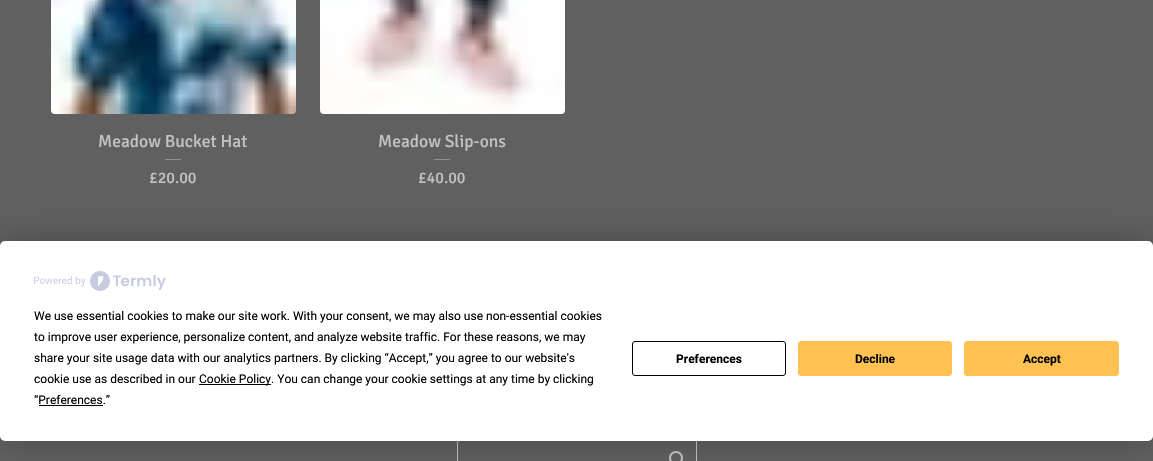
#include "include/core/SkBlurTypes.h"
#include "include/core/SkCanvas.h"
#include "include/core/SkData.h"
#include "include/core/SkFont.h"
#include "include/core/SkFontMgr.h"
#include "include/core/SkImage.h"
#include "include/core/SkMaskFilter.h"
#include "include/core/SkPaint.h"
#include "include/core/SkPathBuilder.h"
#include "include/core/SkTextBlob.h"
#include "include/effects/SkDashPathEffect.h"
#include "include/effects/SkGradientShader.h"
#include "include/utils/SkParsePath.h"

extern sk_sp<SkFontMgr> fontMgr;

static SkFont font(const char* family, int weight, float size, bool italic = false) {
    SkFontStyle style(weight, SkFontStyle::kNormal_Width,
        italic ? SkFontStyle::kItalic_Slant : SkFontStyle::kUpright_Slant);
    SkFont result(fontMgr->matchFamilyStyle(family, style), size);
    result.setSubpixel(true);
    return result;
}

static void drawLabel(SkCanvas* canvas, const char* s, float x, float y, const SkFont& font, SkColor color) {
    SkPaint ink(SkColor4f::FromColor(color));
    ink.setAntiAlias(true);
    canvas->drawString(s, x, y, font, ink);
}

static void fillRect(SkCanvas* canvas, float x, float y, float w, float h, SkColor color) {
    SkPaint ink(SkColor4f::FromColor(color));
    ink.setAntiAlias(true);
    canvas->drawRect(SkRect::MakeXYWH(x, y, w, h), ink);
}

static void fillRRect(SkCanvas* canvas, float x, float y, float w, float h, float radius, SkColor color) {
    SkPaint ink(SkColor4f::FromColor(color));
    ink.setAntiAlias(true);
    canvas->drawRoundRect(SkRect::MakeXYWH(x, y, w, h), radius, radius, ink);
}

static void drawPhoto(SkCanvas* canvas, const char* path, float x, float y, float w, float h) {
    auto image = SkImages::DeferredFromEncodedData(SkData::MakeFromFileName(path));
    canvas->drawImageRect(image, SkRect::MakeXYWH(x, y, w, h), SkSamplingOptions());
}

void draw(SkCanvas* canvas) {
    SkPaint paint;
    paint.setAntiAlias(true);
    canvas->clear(0xFF606060);
    drawPhoto(canvas, "assets/img1.png", 51, 0, 245, 114);
    SkFont font1 = font("Signika", 400, 17.5f);
    drawLabel(canvas, "Meadow Bucket Hat", 98, 147, font1, 0xFFC3C3C3);
    fillRect(canvas, 165, 159, 16, 1, 0xFF929292);
    SkFont font2 = font("Signika", 400, 16);
    drawLabel(canvas, "£20.00", 149, 183, font2, 0xFFC3C3C3);
    drawPhoto(canvas, "assets/img2.png", 320, 0, 245, 114);
    drawLabel(canvas, "Meadow Slip-ons", 378, 147, font1, 0xFFC3C3C3);
    fillRect(canvas, 434, 159, 16, 1, 0xFF929292);
    drawLabel(canvas, "£40.00", 418, 183, font2, 0xFFC3C3C3);
    paint.setStroke(true);
    paint.setStrokeWidth(1);
    paint.setColor(0xFFC3C3C3);
    canvas->drawRoundRect(SkRect::MakeXYWH(457.5f, 438.5f, 239, 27), 3.5f, 3.5f, paint);
    drawPhoto(canvas, "assets/img4.png", 669, 451, 14, 10);
    paint.setStroke(false);
    paint.setColor(0x40000000);
    paint.setMaskFilter(SkMaskFilter::MakeBlur(kNormal_SkBlurStyle, 17.5f));
    canvas->drawRoundRect(SkRect::MakeXYWH(0, 241, 1153, 200), 5, 5, paint);
    paint.setMaskFilter(nullptr);
    fillRRect(canvas, 0, 241, 1153, 200, 5, 0xFFFFFFFF);
    drawPhoto(canvas, "assets/img3.png", 34, 271, 132, 20);
    SkFont font3 = font("Roboto", 400, 12);
    drawLabel(canvas, "We use essential cookies to make our site work. With your consent, we may also use non-essential cookies", 34, 320, font3, 0xFF000000);
    drawLabel(canvas, "to improve user experience, personalize content, and analyze website traffic. For these reasons, we may", 34, 341, font3, 0xFF000000);
    drawLabel(canvas, "share your site usage data with our analytics partners. By clicking “Accept,” you agree to our website's", 34, 362, font3, 0xFF000000);
    drawLabel(canvas, "cookie use as described in our", 34, 383, font3, 0xFF000000);
    fillRect(canvas, 199, 384, 72, 1, 0xFF000000);
    drawLabel(canvas, "Cookie Policy. You can change your cookie settings at any time by clicking", 199, 383, font3, 0xFF000000);
    drawLabel(canvas, "“Preferences.”", 34, 404, font3, 0xFF000000);
    fillRect(canvas, 39, 405, 64, 1, 0xFF000000);
    paint.setStroke(true);
    paint.setColor(0xFF000000);
    canvas->drawRoundRect(SkRect::MakeXYWH(632.5f, 341.5f, 153, 34), 2.5f, 2.5f, paint);
    SkFont font4 = font("Roboto", 700, 12);
    drawLabel(canvas, "Preferences", 676, 363, font4, 0xFF000000);
    paint.setStroke(false);
    paint.setColor(0xFFFFC252);
    canvas->drawRoundRect(SkRect::MakeXYWH(798.5f, 341.5f, 153, 34), 2.5f, 2.5f, paint);
    paint.setStroke(true);
    canvas->drawRoundRect(SkRect::MakeXYWH(798.5f, 341.5f, 153, 34), 2.5f, 2.5f, paint);
    drawLabel(canvas, "Decline", 855, 363, font4, 0xFF000000);
    paint.setStroke(false);
    canvas->drawRoundRect(SkRect::MakeXYWH(964.5f, 341.5f, 154, 34), 2.5f, 2.5f, paint);
    paint.setStroke(true);
    canvas->drawRoundRect(SkRect::MakeXYWH(964.5f, 341.5f, 154, 34), 2.5f, 2.5f, paint);
    drawLabel(canvas, "Accept", 1023, 363, font4, 0xFF000000);
}
